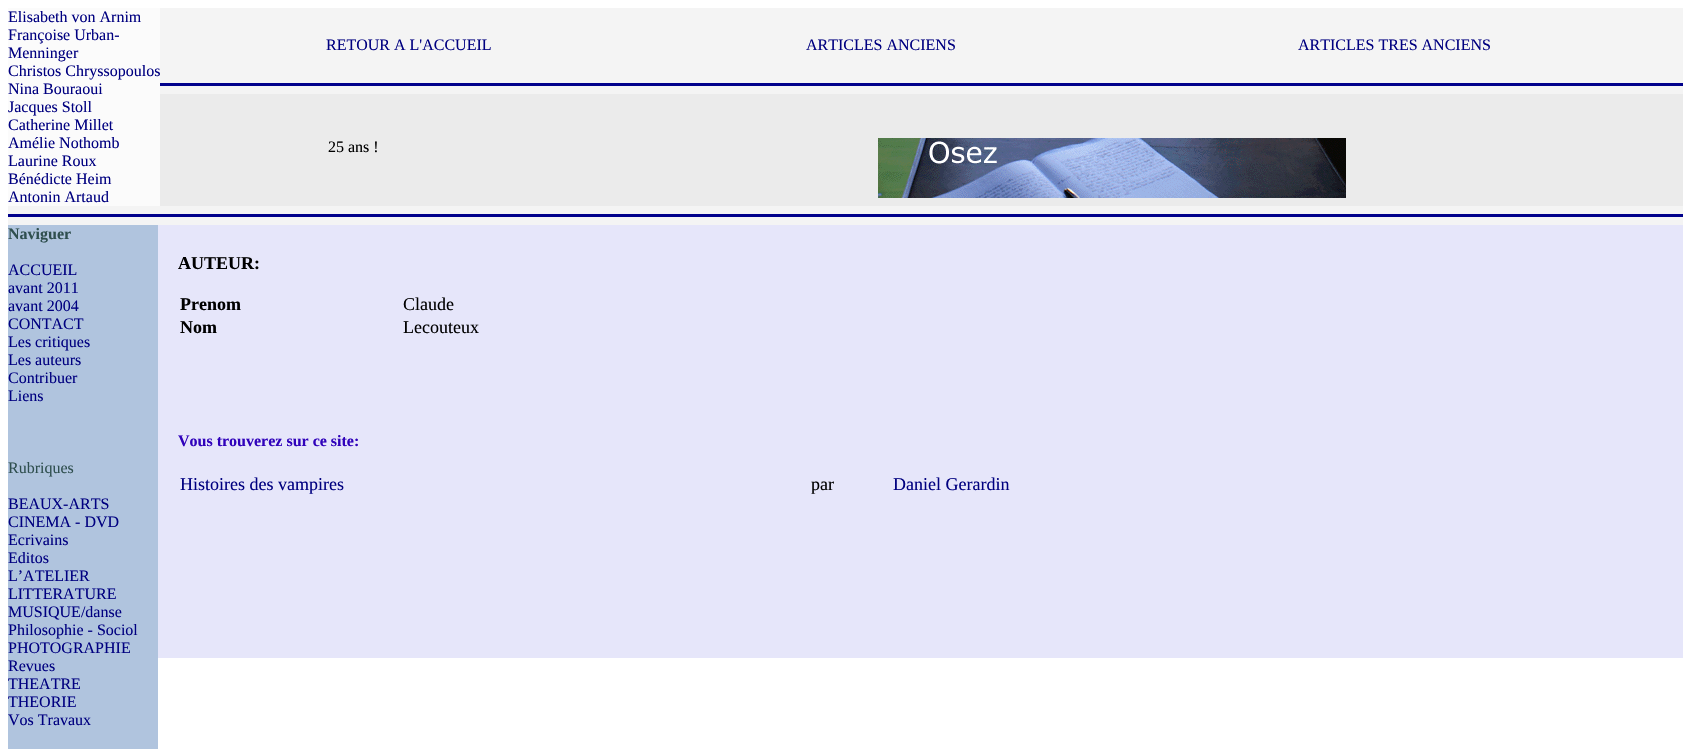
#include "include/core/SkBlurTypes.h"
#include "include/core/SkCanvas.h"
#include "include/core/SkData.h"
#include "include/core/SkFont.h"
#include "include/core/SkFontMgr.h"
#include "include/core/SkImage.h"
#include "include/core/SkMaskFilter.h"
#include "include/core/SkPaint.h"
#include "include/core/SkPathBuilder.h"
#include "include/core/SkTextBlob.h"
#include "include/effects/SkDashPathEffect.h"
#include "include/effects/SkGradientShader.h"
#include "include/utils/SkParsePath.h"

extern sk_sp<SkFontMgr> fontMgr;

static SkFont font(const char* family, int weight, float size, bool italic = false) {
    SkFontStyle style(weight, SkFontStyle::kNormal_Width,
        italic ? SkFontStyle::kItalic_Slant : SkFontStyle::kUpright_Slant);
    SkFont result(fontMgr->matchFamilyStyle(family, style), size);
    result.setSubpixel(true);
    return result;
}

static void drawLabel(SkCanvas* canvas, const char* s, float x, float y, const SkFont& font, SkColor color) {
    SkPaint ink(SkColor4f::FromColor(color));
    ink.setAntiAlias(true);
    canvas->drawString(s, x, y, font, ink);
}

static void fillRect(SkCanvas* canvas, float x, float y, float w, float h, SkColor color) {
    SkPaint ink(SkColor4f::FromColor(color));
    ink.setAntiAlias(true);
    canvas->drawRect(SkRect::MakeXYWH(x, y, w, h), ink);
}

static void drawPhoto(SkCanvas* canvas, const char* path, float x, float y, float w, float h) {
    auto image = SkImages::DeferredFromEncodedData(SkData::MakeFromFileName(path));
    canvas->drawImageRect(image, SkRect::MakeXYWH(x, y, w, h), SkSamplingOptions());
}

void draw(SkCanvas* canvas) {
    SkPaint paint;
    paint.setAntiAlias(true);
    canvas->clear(0xFFFFFFFF);
    fillRect(canvas, 8, 8, 1675, 217, 0xFFF4F4F4);
    fillRect(canvas, 8, 8, 152, 198, 0xFFFBFBFB);
    SkFont font1 = font("Liberation Serif", 400, 16);
    drawLabel(canvas, "Elisabeth von Arnim", 8, 22, font1, 0xFF000080);
    drawLabel(canvas, "Françoise Urban-", 8, 40, font1, 0xFF000080);
    drawLabel(canvas, "Menninger", 8, 58, font1, 0xFF000080);
    drawLabel(canvas, "Christos Chryssopoulos", 8, 76, font1, 0xFF000080);
    drawLabel(canvas, "Nina Bouraoui", 8, 94, font1, 0xFF000080);
    drawLabel(canvas, "Jacques Stoll", 8, 112, font1, 0xFF000080);
    drawLabel(canvas, "Catherine Millet", 8, 130, font1, 0xFF000080);
    drawLabel(canvas, "Amélie Nothomb", 8, 148, font1, 0xFF000080);
    drawLabel(canvas, "Laurine Roux", 8, 166, font1, 0xFF000080);
    drawLabel(canvas, "Bénédicte Heim", 8, 184, font1, 0xFF000080);
    drawLabel(canvas, "Antonin Artaud", 8, 202, font1, 0xFF000080);
    drawLabel(canvas, "RETOUR A L'ACCUEIL", 326, 50, font1, 0xFF000080);
    drawLabel(canvas, "ARTICLES ANCIENS", 806, 50, font1, 0xFF000080);
    drawLabel(canvas, "ARTICLES TRES ANCIENS", 1298, 50, font1, 0xFF000080);
    fillRect(canvas, 160, 83, 1523, 3, 0xFF00008B);
    fillRect(canvas, 160, 94, 1523, 112, 0xFFEBEBEB);
    drawLabel(canvas, "25 ans !", 328, 152, font1, 0xFF000000);
    drawPhoto(canvas, "assets/img1.png", 878, 138, 468, 60);
    fillRect(canvas, 8, 214, 1675, 3, 0xFF00008B);
    fillRect(canvas, 8, 225, 150, 524, 0xFFB0C4DE);
    SkFont font2 = font("Liberation Serif", 700, 16);
    drawLabel(canvas, "Naviguer", 8, 239, font2, 0xFF2F4F4F);
    drawLabel(canvas, "ACCUEIL", 8, 275, font1, 0xFF000080);
    drawLabel(canvas, "avant 2011", 8, 293, font1, 0xFF000080);
    drawLabel(canvas, "avant 2004", 8, 311, font1, 0xFF000080);
    drawLabel(canvas, "CONTACT", 8, 329, font1, 0xFF000080);
    drawLabel(canvas, "Les critiques", 8, 347, font1, 0xFF000080);
    drawLabel(canvas, "Les auteurs", 8, 365, font1, 0xFF000080);
    drawLabel(canvas, "Contribuer", 8, 383, font1, 0xFF000080);
    drawLabel(canvas, "Liens", 8, 401, font1, 0xFF000080);
    drawLabel(canvas, "Rubriques", 8, 473, font1, 0xFF2F4F4F);
    drawLabel(canvas, "BEAUX-ARTS", 8, 509, font1, 0xFF000080);
    drawLabel(canvas, "CINEMA - DVD", 8, 527, font1, 0xFF000080);
    drawLabel(canvas, "Ecrivains", 8, 545, font1, 0xFF000080);
    drawLabel(canvas, "Editos", 8, 563, font1, 0xFF000080);
    drawLabel(canvas, "L’ATELIER", 8, 581, font1, 0xFF000080);
    drawLabel(canvas, "LITTERATURE", 8, 599, font1, 0xFF000080);
    drawLabel(canvas, "MUSIQUE/danse", 8, 617, font1, 0xFF000080);
    drawLabel(canvas, "Philosophie - Sociol", 8, 635, font1, 0xFF000080);
    drawLabel(canvas, "PHOTOGRAPHIE", 8, 653, font1, 0xFF000080);
    drawLabel(canvas, "Revues", 8, 671, font1, 0xFF000080);
    drawLabel(canvas, "THEATRE", 8, 689, font1, 0xFF000080);
    drawLabel(canvas, "THEORIE", 8, 707, font1, 0xFF000080);
    drawLabel(canvas, "Vos Travaux", 8, 725, font1, 0xFF000080);
    fillRect(canvas, 158, 225, 1525, 433, 0xFFE6E6FA);
    SkFont font3 = font("Liberation Serif", 700, 18);
    drawLabel(canvas, "AUTEUR:", 178, 269, font3, 0xFF000000);
    drawLabel(canvas, "Prenom", 180, 310, font3, 0xFF000000);
    SkFont font4 = font("Liberation Serif", 400, 18);
    drawLabel(canvas, "Claude", 403, 310, font4, 0xFF000000);
    drawLabel(canvas, "Nom", 180, 333, font3, 0xFF000000);
    drawLabel(canvas, "Lecouteux", 403, 333, font4, 0xFF000000);
    drawLabel(canvas, "Vous trouverez sur ce site:", 178, 446, font2, 0xFF3002BB);
    drawLabel(canvas, "Histoires des vampires", 180, 490, font4, 0xFF000080);
    drawLabel(canvas, "par", 811, 490, font4, 0xFF000000);
    drawLabel(canvas, "Daniel Gerardin", 893, 490, font4, 0xFF000080);
}
